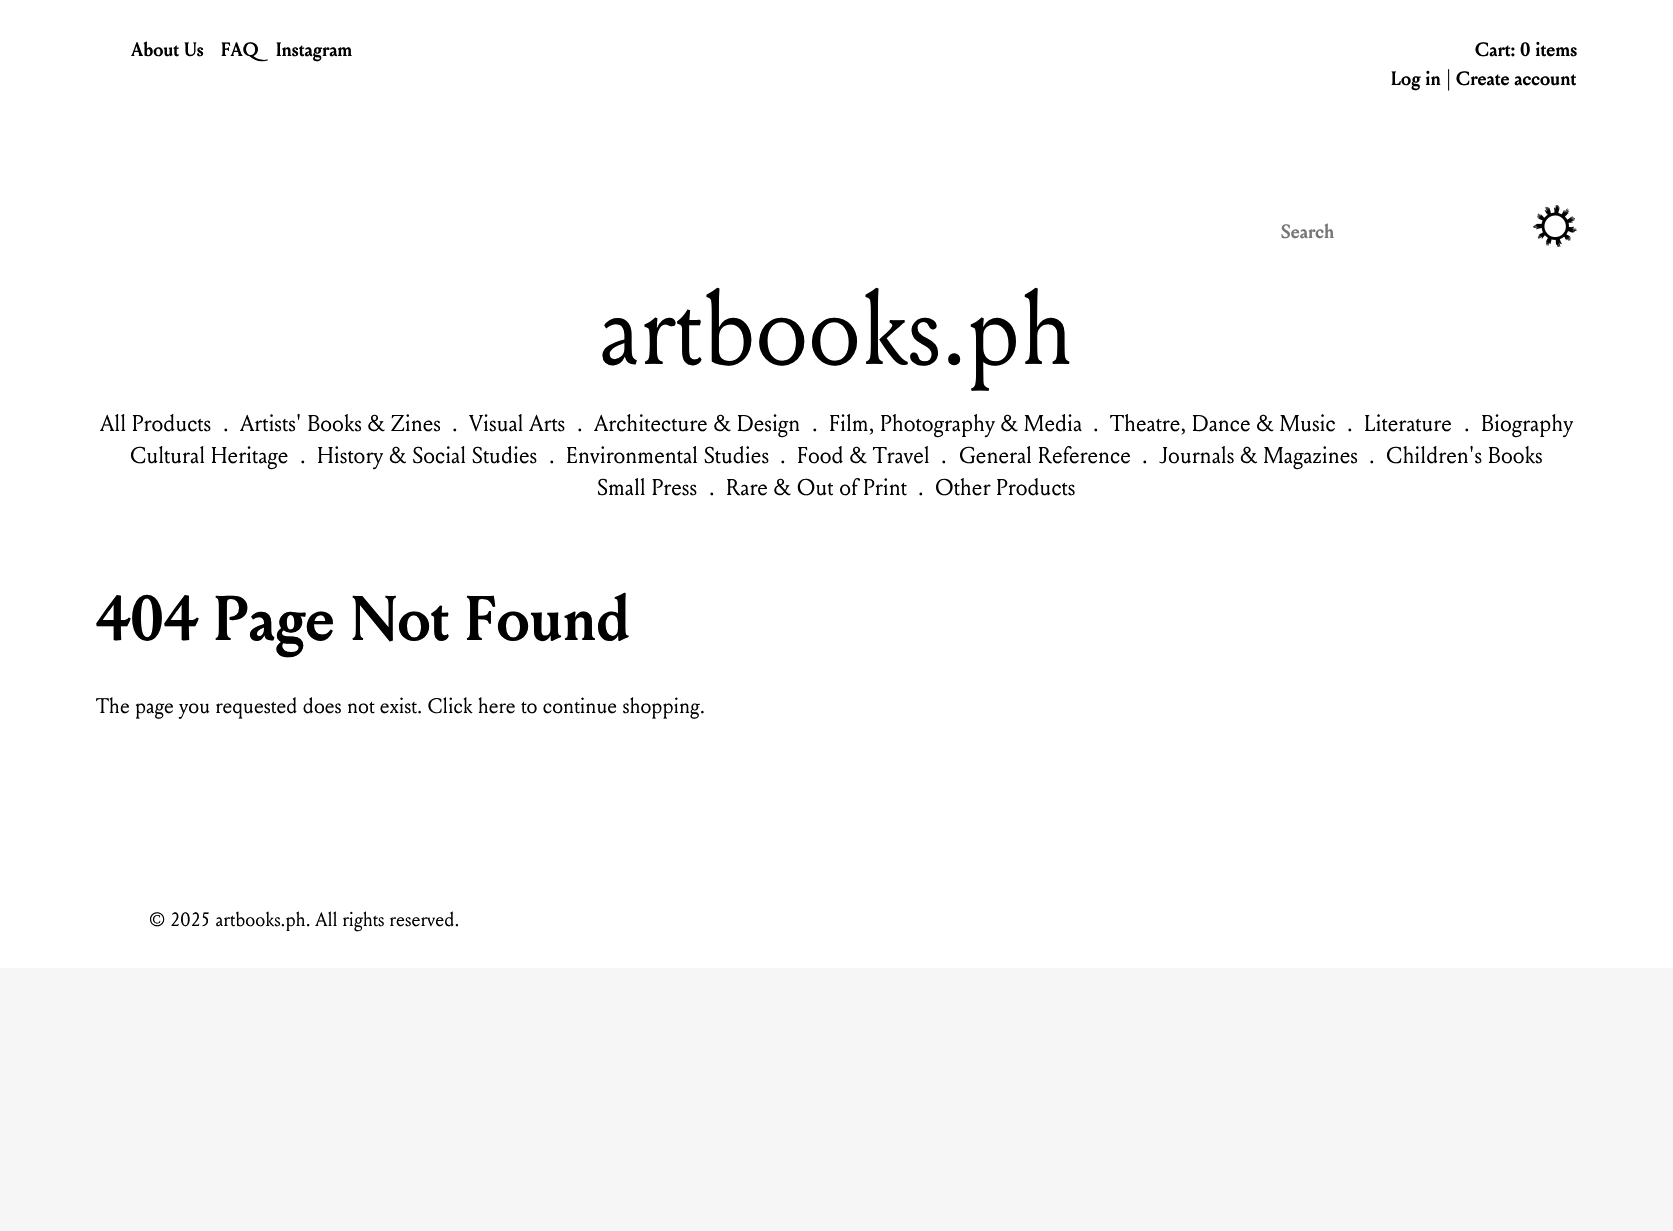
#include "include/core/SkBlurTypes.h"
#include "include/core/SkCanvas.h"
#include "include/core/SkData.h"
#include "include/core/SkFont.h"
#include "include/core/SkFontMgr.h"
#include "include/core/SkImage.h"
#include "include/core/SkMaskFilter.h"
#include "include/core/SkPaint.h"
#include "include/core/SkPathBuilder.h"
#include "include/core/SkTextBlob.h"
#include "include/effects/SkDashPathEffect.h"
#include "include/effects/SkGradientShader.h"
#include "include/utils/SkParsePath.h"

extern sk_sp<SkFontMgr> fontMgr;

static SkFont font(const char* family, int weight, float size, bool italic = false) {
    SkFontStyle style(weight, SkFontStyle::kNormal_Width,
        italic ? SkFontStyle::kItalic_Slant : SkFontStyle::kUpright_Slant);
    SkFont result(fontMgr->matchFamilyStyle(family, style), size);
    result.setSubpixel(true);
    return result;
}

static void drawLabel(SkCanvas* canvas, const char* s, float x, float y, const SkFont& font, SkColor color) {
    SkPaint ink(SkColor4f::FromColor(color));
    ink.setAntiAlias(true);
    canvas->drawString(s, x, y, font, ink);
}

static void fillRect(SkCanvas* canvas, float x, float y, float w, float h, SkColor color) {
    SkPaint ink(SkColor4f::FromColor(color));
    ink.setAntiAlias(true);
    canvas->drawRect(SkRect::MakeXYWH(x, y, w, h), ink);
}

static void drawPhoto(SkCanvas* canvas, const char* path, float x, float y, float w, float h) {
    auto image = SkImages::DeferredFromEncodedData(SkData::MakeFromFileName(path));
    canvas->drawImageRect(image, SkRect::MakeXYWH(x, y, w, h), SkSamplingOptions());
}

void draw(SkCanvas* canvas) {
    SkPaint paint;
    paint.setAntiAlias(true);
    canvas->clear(0xFFF6F6F6);
    fillRect(canvas, 0, 0, 1673, 968, 0xFFFFFFFF);
    SkFont font1 = font("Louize", 700, 19.25f);
    drawLabel(canvas, "About Us", 131, 56, font1, 0xFF000000);
    drawLabel(canvas, "FAQ", 221, 56, font1, 0xFF000000);
    drawLabel(canvas, "Instagram", 276, 56, font1, 0xFF000000);
    drawLabel(canvas, "Cart: 0 items", 1475, 56, font1, 0xFF000000);
    drawLabel(canvas, "Log in", 1391, 85, font1, 0xFF000000);
    SkFont font2 = font("Louize", 400, 21);
    drawLabel(canvas, "|", 1446, 85, font2, 0xFF000000);
    drawLabel(canvas, "Create account", 1456, 85, font1, 0xFF000000);
    drawLabel(canvas, "Search", 1281, 238, font1, 0xFF757575);
    drawPhoto(canvas, "assets/img1.png", 1533, 205, 44, 42);
    SkFont font3 = font("Louize", 400, 101.5f);
    drawLabel(canvas, "artbooks.ph", 599, 364, font3, 0xFF000000);
    SkFont font4 = font("Louize", 400, 22.75f);
    drawLabel(canvas, "All Products", 100, 431, font4, 0xFF000000);
    drawLabel(canvas, ".", 223, 431, font4, 0xFF000000);
    drawLabel(canvas, "Artists' Books & Zines", 240, 431, font4, 0xFF000000);
    drawLabel(canvas, ".", 452, 431, font4, 0xFF000000);
    drawLabel(canvas, "Visual Arts", 469, 431, font4, 0xFF000000);
    drawLabel(canvas, ".", 577, 431, font4, 0xFF000000);
    drawLabel(canvas, "Architecture & Design", 594, 431, font4, 0xFF000000);
    drawLabel(canvas, ".", 812, 431, font4, 0xFF000000);
    drawLabel(canvas, "Film, Photography & Media", 829, 431, font4, 0xFF000000);
    drawLabel(canvas, ".", 1093, 431, font4, 0xFF000000);
    drawLabel(canvas, "Theatre, Dance & Music", 1110, 431, font4, 0xFF000000);
    drawLabel(canvas, ".", 1347, 431, font4, 0xFF000000);
    drawLabel(canvas, "Literature", 1364, 431, font4, 0xFF000000);
    drawLabel(canvas, ".", 1464, 431, font4, 0xFF000000);
    drawLabel(canvas, "Biography", 1481, 431, font4, 0xFF000000);
    drawLabel(canvas, "Cultural Heritage", 130, 463, font4, 0xFF000000);
    drawLabel(canvas, ".", 300, 463, font4, 0xFF000000);
    drawLabel(canvas, "History & Social Studies", 317, 463, font4, 0xFF000000);
    drawLabel(canvas, ".", 549, 463, font4, 0xFF000000);
    drawLabel(canvas, "Environmental Studies", 566, 463, font4, 0xFF000000);
    drawLabel(canvas, ".", 780, 463, font4, 0xFF000000);
    drawLabel(canvas, "Food & Travel", 797, 463, font4, 0xFF000000);
    drawLabel(canvas, ".", 941, 463, font4, 0xFF000000);
    drawLabel(canvas, "General Reference", 959, 463, font4, 0xFF000000);
    drawLabel(canvas, ".", 1142, 463, font4, 0xFF000000);
    drawLabel(canvas, "Journals & Magazines", 1159, 463, font4, 0xFF000000);
    drawLabel(canvas, ".", 1369, 463, font4, 0xFF000000);
    drawLabel(canvas, "Children's Books", 1386, 463, font4, 0xFF000000);
    drawLabel(canvas, "Small Press", 597, 495, font4, 0xFF000000);
    drawLabel(canvas, ".", 709, 495, font4, 0xFF000000);
    drawLabel(canvas, "Rare & Out of Print", 726, 495, font4, 0xFF000000);
    drawLabel(canvas, ".", 918, 495, font4, 0xFF000000);
    drawLabel(canvas, "Other Products", 935, 495, font4, 0xFF000000);
    SkFont font5 = font("Louize", 700, 63);
    drawLabel(canvas, "404 Page Not Found", 96, 640, font5, 0xFF000000);
    drawLabel(canvas, "The page you requested does not exist. Click here to continue shopping.", 96, 713, font2, 0xFF000000);
    SkFont font6 = font("Louize", 400, 19.25f);
    drawLabel(canvas, "© 2025 artbooks.ph. All rights reserved.", 149, 926, font6, 0xFF000000);
}
